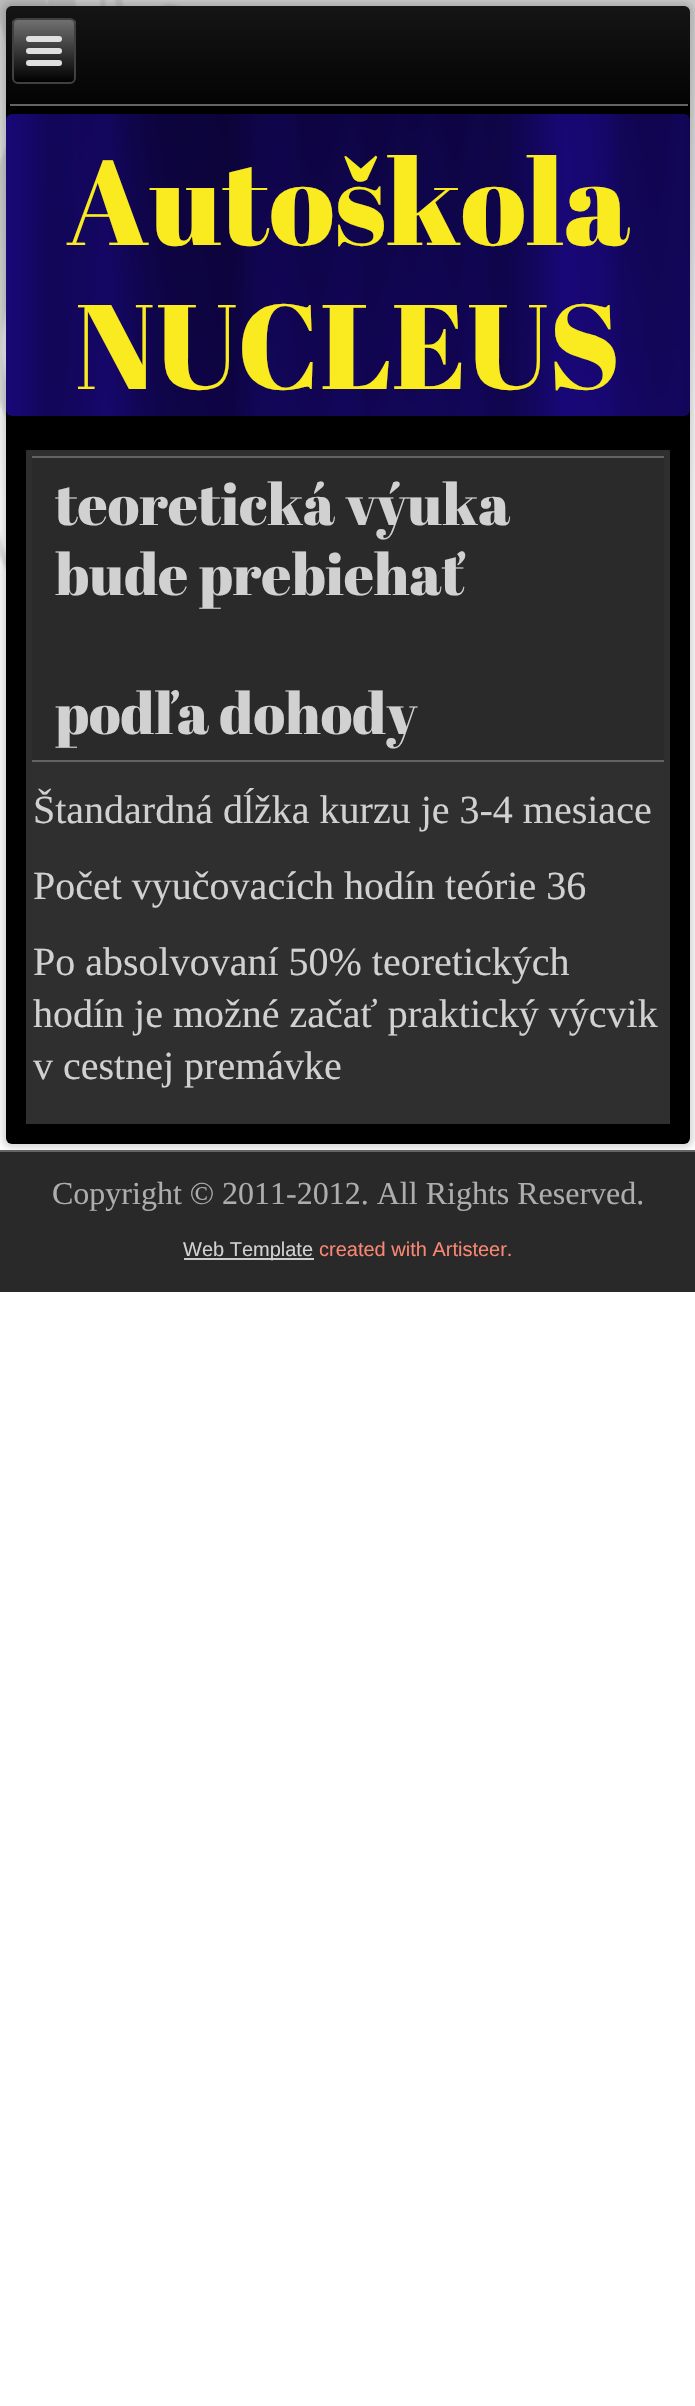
#include "include/core/SkBlurTypes.h"
#include "include/core/SkCanvas.h"
#include "include/core/SkData.h"
#include "include/core/SkFont.h"
#include "include/core/SkFontMgr.h"
#include "include/core/SkImage.h"
#include "include/core/SkMaskFilter.h"
#include "include/core/SkPaint.h"
#include "include/core/SkPathBuilder.h"
#include "include/core/SkTextBlob.h"
#include "include/effects/SkDashPathEffect.h"
#include "include/effects/SkGradientShader.h"
#include "include/utils/SkParsePath.h"

extern sk_sp<SkFontMgr> fontMgr;

static SkFont font(const char* family, int weight, float size, bool italic = false) {
    SkFontStyle style(weight, SkFontStyle::kNormal_Width,
        italic ? SkFontStyle::kItalic_Slant : SkFontStyle::kUpright_Slant);
    SkFont result(fontMgr->matchFamilyStyle(family, style), size);
    result.setSubpixel(true);
    return result;
}

static void drawLabel(SkCanvas* canvas, const char* s, float x, float y, const SkFont& font, SkColor color) {
    SkPaint ink(SkColor4f::FromColor(color));
    ink.setAntiAlias(true);
    canvas->drawString(s, x, y, font, ink);
}

static void fillRect(SkCanvas* canvas, float x, float y, float w, float h, SkColor color) {
    SkPaint ink(SkColor4f::FromColor(color));
    ink.setAntiAlias(true);
    canvas->drawRect(SkRect::MakeXYWH(x, y, w, h), ink);
}

static void fillRRect(SkCanvas* canvas, float x, float y, float w, float h, float radius, SkColor color) {
    SkPaint ink(SkColor4f::FromColor(color));
    ink.setAntiAlias(true);
    canvas->drawRoundRect(SkRect::MakeXYWH(x, y, w, h), radius, radius, ink);
}

static void drawPhoto(SkCanvas* canvas, const char* path, float x, float y, float w, float h) {
    auto image = SkImages::DeferredFromEncodedData(SkData::MakeFromFileName(path));
    canvas->drawImageRect(image, SkRect::MakeXYWH(x, y, w, h), SkSamplingOptions());
}

static SkPath parsePath(const char* data, bool evenOdd = false) {
    SkPath result = *SkParsePath::FromSVGString(data);
    if (evenOdd) result.setFillType(SkPathFillType::kEvenOdd);
    return result;
}

void draw(SkCanvas* canvas) {
    SkPaint paint;
    paint.setAntiAlias(true);
    canvas->clear(0xFFFFFFFF);
    drawPhoto(canvas, "assets/img1.png", 0, 0, 695, 872);
    paint.setColor(0x26000000);
    paint.setMaskFilter(SkMaskFilter::MakeBlur(kNormal_SkBlurStyle, 3));
    canvas->drawRoundRect(SkRect::MakeXYWH(2, 2, 692, 1146), 10, 10, paint);
    paint.setMaskFilter(nullptr);
    fillRRect(canvas, 6, 6, 684, 1138, 6, 0xFF000000);
    {
        const SkColor colors[] = {0x4D454545, 0x4D0A0A0A};
        const float stops[] = {0, 1};
        const SkPoint ends[] = {{348, 6}, {348, 106}};
        paint.setShader(SkGradientShader::MakeLinear(ends, colors, stops, 2, SkTileMode::kClamp));
        paint.setAlpha(255);
    }
    canvas->drawRoundRect(SkRect::MakeXYWH(6, 6, 684, 100), 6, 6, paint);
    fillRect(canvas, 10, 104, 678, 2, 0xFF636363);
    canvas->save();
    canvas->clipPath(parsePath("M18 18H70C73.5 18 76 20.5 76 24V78C76 81.5 73.5 84 70 84H18C14.5 84 12 81.5 12 78V24C12 20.5 14.5 18 18 18Z"), true);
    {
        const SkColor colors[] = {0xFF707070, 0xFF000000};
        const float stops[] = {0, 1};
        const SkPoint ends[] = {{44, 20}, {44, 82}};
        paint.setShader(SkGradientShader::MakeLinear(ends, colors, stops, 2, SkTileMode::kClamp));
        paint.setAlpha(255);
    }
    canvas->drawRect(SkRect::MakeXYWH(12, 20, 64, 62), paint);
    canvas->restore();
    paint.setStroke(true);
    paint.setStrokeWidth(2);
    paint.setShader(nullptr);
    paint.setColor(0xFF404040);
    canvas->drawRoundRect(SkRect::MakeXYWH(13, 19, 62, 64), 5, 5, paint);
    fillRRect(canvas, 26, 36, 36, 6, 3, 0xFFE0E0E0);
    fillRRect(canvas, 26, 48, 36, 6, 3, 0xFFE0E0E0);
    fillRRect(canvas, 26, 60, 36, 6, 3, 0xFFE0E0E0);
    drawPhoto(canvas, "assets/img2.png", 6, 114, 684, 302);
    SkFont font1 = font("Abril Fatface", 400, 120);
    drawLabel(canvas, "Autoškola", 66, 245, font1, 0xFFF9EB1F);
    drawLabel(canvas, "NUCLEUS", 75, 389, font1, 0xFFF9EB1F);
    fillRect(canvas, 26, 450, 644, 674, 0xFF2F2F2F);
    fillRect(canvas, 32, 458, 632, 302, 0xFF2A2A2A);
    fillRect(canvas, 32, 456, 632, 2, 0xFF636363);
    fillRect(canvas, 32, 760, 632, 2, 0xFF636363);
    SkFont font2 = font("Abril Fatface", 400, 58);
    drawLabel(canvas, "teoretická výuka", 55, 525, font2, 0xFFD1D1D1);
    drawLabel(canvas, "bude prebiehať", 55, 595, font2, 0xFFD1D1D1);
    drawLabel(canvas, "podľa dohody", 55, 734, font2, 0xFFD1D1D1);
    SkFont font3 = font("Liberation Serif", 400, 40);
    drawLabel(canvas, "Štandardná dĺžka kurzu je 3-4 mesiace", 33, 823, font3, 0xFFD1D1D1);
    drawLabel(canvas, "Počet vyučovacích hodín teórie 36", 33, 899, font3, 0xFFD1D1D1);
    drawLabel(canvas, "Po absolvovaní 50% teoretických", 33, 975, font3, 0xFFD1D1D1);
    drawLabel(canvas, "hodín je možné začať praktický výcvik", 33, 1027, font3, 0xFFD1D1D1);
    drawLabel(canvas, "v cestnej premávke", 33, 1079, font3, 0xFFD1D1D1);
    fillRect(canvas, 0, 1152, 695, 140, 0xFF292929);
    fillRect(canvas, 0, 1150, 695, 2, 0xFF636363);
    SkFont font4 = font("Liberation Serif", 400, 32);
    drawLabel(canvas, "Copyright © 2011-2012. All Rights Reserved.", 52, 1204, font4, 0xFFADADAD);
    fillRect(canvas, 184, 1258, 130, 2, 0xFFCCCCCC);
    SkFont font5 = font("Liberation Sans", 400, 20);
    drawLabel(canvas, "Web Template", 183, 1256, font5, 0xFFD1D1D1);
    drawLabel(canvas, "created with Artisteer.", 319, 1256, font5, 0xFFF88672);
}
